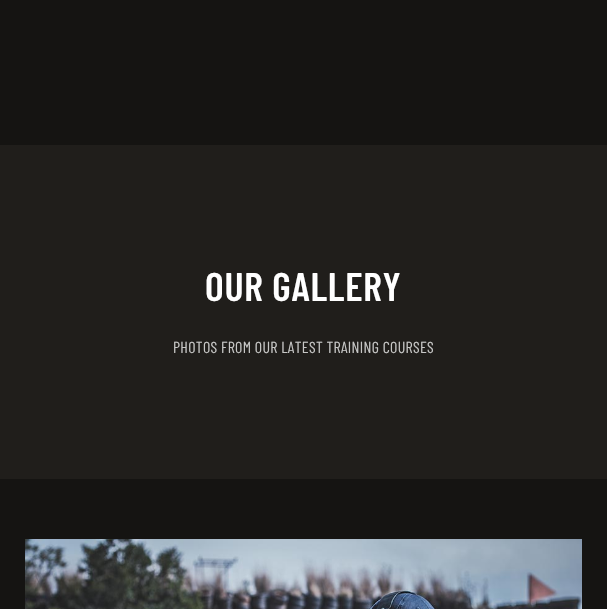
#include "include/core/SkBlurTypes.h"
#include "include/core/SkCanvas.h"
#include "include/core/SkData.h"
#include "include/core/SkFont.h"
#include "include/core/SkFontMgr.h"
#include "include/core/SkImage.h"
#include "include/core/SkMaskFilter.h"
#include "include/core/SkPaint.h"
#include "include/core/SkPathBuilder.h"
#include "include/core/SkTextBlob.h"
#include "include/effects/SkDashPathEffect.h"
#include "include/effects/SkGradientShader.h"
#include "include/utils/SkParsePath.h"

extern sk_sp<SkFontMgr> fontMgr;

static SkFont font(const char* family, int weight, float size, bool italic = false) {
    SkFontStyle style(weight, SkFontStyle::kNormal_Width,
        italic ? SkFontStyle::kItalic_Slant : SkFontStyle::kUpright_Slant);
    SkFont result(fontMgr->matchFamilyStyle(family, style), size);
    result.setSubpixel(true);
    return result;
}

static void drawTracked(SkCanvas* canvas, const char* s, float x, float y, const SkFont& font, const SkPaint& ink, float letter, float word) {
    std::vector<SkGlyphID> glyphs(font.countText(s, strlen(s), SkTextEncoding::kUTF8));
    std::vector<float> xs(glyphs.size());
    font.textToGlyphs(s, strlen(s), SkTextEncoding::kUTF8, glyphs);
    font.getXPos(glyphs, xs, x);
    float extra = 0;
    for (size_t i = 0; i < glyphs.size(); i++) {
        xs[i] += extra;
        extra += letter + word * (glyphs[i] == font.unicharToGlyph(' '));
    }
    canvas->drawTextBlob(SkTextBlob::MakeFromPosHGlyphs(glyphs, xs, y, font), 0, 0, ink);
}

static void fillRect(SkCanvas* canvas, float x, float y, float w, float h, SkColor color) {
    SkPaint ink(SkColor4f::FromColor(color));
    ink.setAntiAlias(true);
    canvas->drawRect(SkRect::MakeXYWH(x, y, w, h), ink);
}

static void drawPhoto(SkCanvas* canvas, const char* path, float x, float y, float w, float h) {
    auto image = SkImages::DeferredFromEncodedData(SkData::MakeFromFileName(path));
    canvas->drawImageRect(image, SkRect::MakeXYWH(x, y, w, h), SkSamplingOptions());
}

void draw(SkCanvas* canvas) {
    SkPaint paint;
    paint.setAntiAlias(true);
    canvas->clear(0xFF151412);
    fillRect(canvas, 0, 145, 607, 334, 0xFF201E1B);
    SkFont font1 = font("Barlow Condensed", 600, 40);
    paint.setColor(0xFFFFFFFF);
    drawTracked(canvas, "OUR GALLERY", 205, 301, font1, paint, 0.75f, 0);
    SkFont font2 = font("Barlow Condensed", 400, 16);
    paint.setColor(0xFFC7C7C6);
    drawTracked(canvas, "PHOTOS FROM OUR LATEST TRAINING COURSES", 173, 353, font2, paint, 0.3f, 0);
    drawPhoto(canvas, "assets/img1.png", 25, 539, 557, 70);
}
